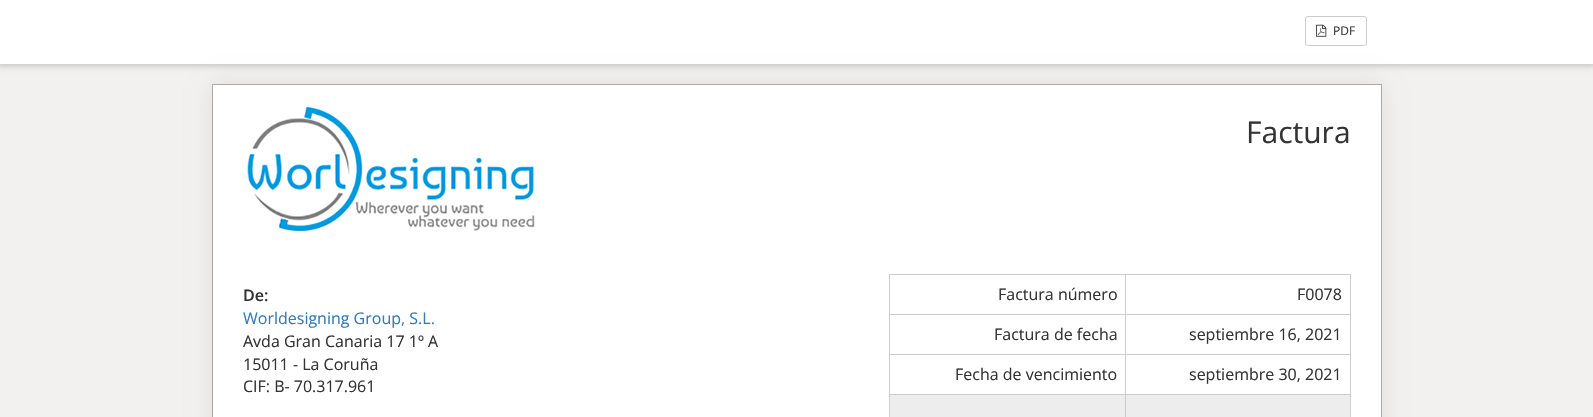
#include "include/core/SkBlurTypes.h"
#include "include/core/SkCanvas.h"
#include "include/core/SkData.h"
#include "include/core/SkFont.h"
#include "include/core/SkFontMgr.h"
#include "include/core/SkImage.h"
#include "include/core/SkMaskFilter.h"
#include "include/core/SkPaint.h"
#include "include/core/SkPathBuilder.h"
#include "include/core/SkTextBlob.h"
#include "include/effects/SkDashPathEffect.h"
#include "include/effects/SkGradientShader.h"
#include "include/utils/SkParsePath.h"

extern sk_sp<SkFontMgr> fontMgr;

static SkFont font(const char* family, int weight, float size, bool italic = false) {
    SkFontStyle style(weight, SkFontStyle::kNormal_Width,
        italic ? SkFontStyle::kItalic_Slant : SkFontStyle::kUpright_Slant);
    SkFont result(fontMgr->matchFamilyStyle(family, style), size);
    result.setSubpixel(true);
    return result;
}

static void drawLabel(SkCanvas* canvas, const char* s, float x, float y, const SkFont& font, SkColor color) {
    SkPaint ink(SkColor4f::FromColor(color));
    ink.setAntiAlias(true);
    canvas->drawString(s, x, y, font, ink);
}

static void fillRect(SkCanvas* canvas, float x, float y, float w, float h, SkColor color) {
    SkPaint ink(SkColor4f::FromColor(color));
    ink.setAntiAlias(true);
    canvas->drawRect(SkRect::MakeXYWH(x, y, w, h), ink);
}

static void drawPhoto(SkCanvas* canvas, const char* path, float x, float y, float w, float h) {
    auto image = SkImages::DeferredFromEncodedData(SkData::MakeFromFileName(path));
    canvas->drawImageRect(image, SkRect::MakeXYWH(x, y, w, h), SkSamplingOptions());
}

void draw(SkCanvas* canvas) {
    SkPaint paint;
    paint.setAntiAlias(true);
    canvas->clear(0xFFF2F1EF);
    paint.setColor(0x26000000);
    paint.setMaskFilter(SkMaskFilter::MakeBlur(kNormal_SkBlurStyle, 2.5f));
    canvas->drawRect(SkRect::MakeXYWH(-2, -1, 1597, 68), paint);
    paint.setMaskFilter(nullptr);
    fillRect(canvas, 0, 0, 1593, 64, 0xFFFFFFFF);
    paint.setStroke(true);
    paint.setStrokeWidth(1);
    paint.setColor(0xFFCCCCCC);
    canvas->drawRoundRect(SkRect::MakeXYWH(1305.5f, 16.5f, 61, 29), 2.5f, 2.5f, paint);
    drawPhoto(canvas, "assets/img1.png", 1316, 24, 11, 13);
    SkFont font1 = font("Open Sans", 400, 12);
    drawLabel(canvas, "PDF", 1333, 35, font1, 0xFF333333);
    paint.setStroke(false);
    paint.setColor(0x12000000);
    paint.setMaskFilter(SkMaskFilter::MakeBlur(kNormal_SkBlurStyle, 10));
    canvas->drawRect(SkRect::MakeXYWH(212, 84, 1170, 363), paint);
    paint.setMaskFilter(nullptr);
    paint.setColor(0xFFFFFFFF);
    canvas->drawRect(SkRect::MakeXYWH(212.5f, 84.5f, 1169, 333), paint);
    paint.setStroke(true);
    paint.setColor(0xFFAAAAAA);
    canvas->drawRect(SkRect::MakeXYWH(212.5f, 84.5f, 1169, 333), paint);
    drawPhoto(canvas, "assets/img2.png", 243, 106, 295, 126);
    SkFont font2 = font("Open Sans", 400, 30);
    drawLabel(canvas, "Factura", 1246, 143, font2, 0xFF333333);
    SkFont font3 = font("Open Sans", 600, 16);
    drawLabel(canvas, "De:", 243, 301, font3, 0xFF333333);
    SkFont font4 = font("Open Sans", 400, 16);
    drawLabel(canvas, "Worldesigning Group, S.L.", 243, 324, font4, 0xFF337AB7);
    drawLabel(canvas, "Avda Gran Canaria 17 1º A", 243, 347, font4, 0xFF333333);
    drawLabel(canvas, "15011 - La Coruña", 243, 370, font4, 0xFF333333);
    drawLabel(canvas, "CIF: B- 70.317.961", 243, 392, font4, 0xFF333333);
    fillRect(canvas, 889, 274, 462, 1, 0xFFCCCCCC);
    fillRect(canvas, 1350, 274, 1, 143, 0xFFCCCCCC);
    fillRect(canvas, 889, 274, 1, 143, 0xFFCCCCCC);
    drawLabel(canvas, "Factura número", 998, 300, font4, 0xFF333333);
    fillRect(canvas, 1125, 314, 226, 1, 0xFFCCCCCC);
    fillRect(canvas, 1125, 354, 226, 1, 0xFFCCCCCC);
    fillRect(canvas, 1125, 394, 226, 1, 0xFFCCCCCC);
    fillRect(canvas, 1125, 394, 1, 23, 0xFFCCCCCC);
    fillRect(canvas, 889, 394, 237, 1, 0xFFCCCCCC);
    fillRect(canvas, 1125, 354, 1, 41, 0xFFCCCCCC);
    fillRect(canvas, 889, 354, 237, 1, 0xFFCCCCCC);
    fillRect(canvas, 1125, 314, 1, 41, 0xFFCCCCCC);
    fillRect(canvas, 889, 314, 237, 1, 0xFFCCCCCC);
    fillRect(canvas, 1125, 274, 1, 41, 0xFFCCCCCC);
    drawLabel(canvas, "F0078", 1297, 300, font4, 0xFF333333);
    drawLabel(canvas, "Factura de fecha", 994, 340, font4, 0xFF333333);
    drawLabel(canvas, "septiembre 16, 2021", 1189, 340, font4, 0xFF333333);
    drawLabel(canvas, "Fecha de vencimiento", 955, 380, font4, 0xFF333333);
    drawLabel(canvas, "septiembre 30, 2021", 1189, 380, font4, 0xFF333333);
    fillRect(canvas, 890, 395, 235, 22, 0xFFEDEDED);
    fillRect(canvas, 1126, 395, 224, 22, 0xFFEDEDED);
}
